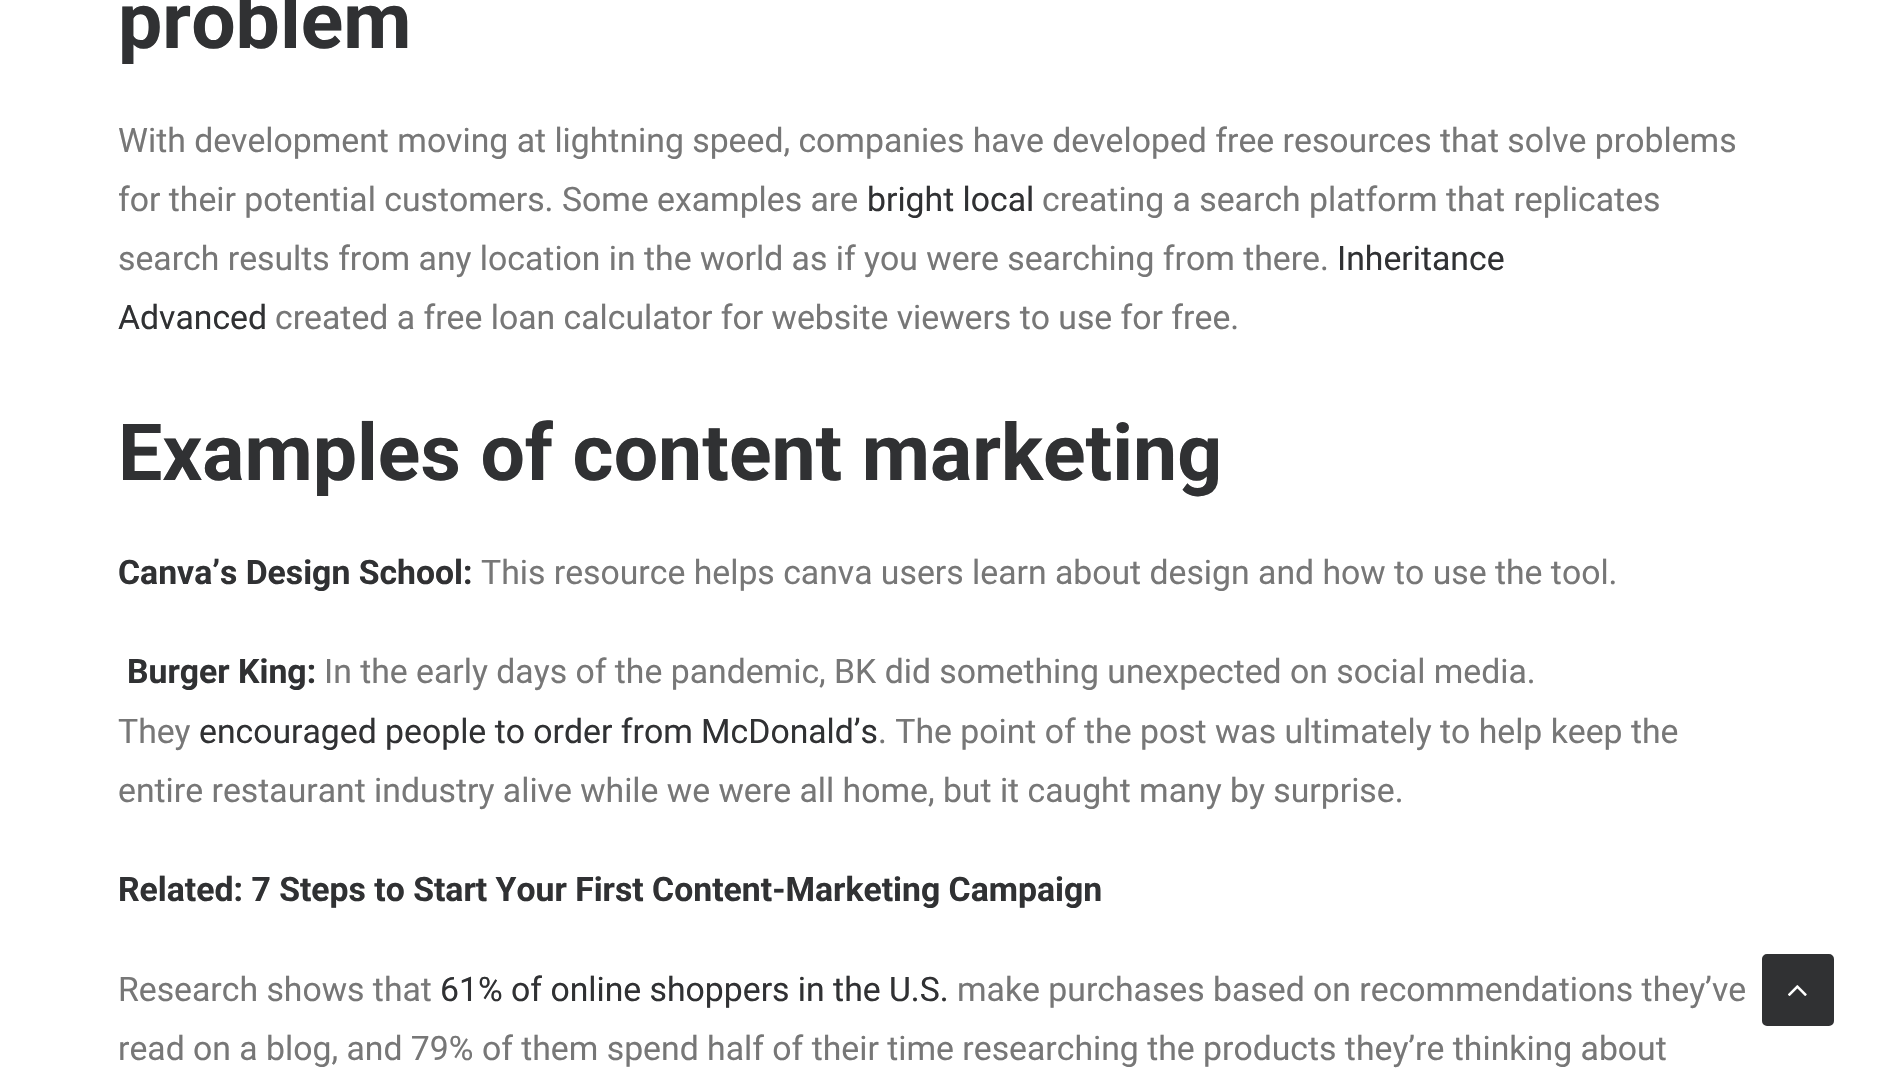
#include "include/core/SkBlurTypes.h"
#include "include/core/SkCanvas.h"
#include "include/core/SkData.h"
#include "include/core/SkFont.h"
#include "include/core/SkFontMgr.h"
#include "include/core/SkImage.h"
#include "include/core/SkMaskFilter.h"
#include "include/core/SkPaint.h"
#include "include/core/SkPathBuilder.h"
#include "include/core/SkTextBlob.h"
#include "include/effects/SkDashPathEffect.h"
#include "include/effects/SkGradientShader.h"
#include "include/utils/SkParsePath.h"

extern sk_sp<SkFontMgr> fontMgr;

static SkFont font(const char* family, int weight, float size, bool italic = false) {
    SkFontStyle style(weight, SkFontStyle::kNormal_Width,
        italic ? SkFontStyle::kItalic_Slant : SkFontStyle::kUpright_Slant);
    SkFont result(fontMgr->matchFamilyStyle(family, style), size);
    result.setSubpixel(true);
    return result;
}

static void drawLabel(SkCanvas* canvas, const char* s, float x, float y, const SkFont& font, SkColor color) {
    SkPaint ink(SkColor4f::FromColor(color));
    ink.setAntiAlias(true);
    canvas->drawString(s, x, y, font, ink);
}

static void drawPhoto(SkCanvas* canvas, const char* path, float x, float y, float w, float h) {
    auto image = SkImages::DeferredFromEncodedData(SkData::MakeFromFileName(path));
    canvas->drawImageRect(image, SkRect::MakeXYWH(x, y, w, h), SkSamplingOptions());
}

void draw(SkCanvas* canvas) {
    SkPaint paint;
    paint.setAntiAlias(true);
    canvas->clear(0xFFFFFFFF);
    SkFont font1 = font("Roboto", 700, 78.75f);
    drawLabel(canvas, "problem", 118, 48, font1, 0xFF303133);
    SkFont font2 = font("Roboto", 400, 33.75f);
    drawLabel(canvas, "With development moving at lightning speed, companies have developed free resources that solve problems", 118, 152, font2, 0xFF777777);
    drawLabel(canvas, "for their potential customers. Some examples are", 118, 211, font2, 0xFF777777);
    drawLabel(canvas, "bright local", 867, 211, font2, 0xFF303133);
    drawLabel(canvas, "creating a search platform that replicates", 1042, 211, font2, 0xFF777777);
    drawLabel(canvas, "search results from any location in the world as if you were searching from there.", 118, 270, font2, 0xFF777777);
    drawLabel(canvas, "Inheritance", 1337, 270, font2, 0xFF303133);
    drawLabel(canvas, "Advanced", 118, 329, font2, 0xFF303133);
    drawLabel(canvas, "created a free loan calculator for website viewers to use for free.", 275, 329, font2, 0xFF777777);
    drawLabel(canvas, "Examples of content marketing", 118, 480, font1, 0xFF303133);
    SkFont font3 = font("Roboto", 700, 33.75f);
    drawLabel(canvas, "Canva’s Design School:", 118, 584, font3, 0xFF303133);
    drawLabel(canvas, "This resource helps canva users learn about design and how to use the tool.", 481, 584, font2, 0xFF777777);
    drawLabel(canvas, "Burger King:", 127, 683, font3, 0xFF303133);
    drawLabel(canvas, "In the early days of the pandemic, BK did something unexpected on social media.", 324, 683, font2, 0xFF777777);
    drawLabel(canvas, "They", 118, 743, font2, 0xFF777777);
    drawLabel(canvas, "encouraged people to order from McDonald’s", 199, 743, font2, 0xFF303133);
    drawLabel(canvas, ". The point of the post was ultimately to help keep the", 878, 743, font2, 0xFF777777);
    drawLabel(canvas, "entire restaurant industry alive while we were all home, but it caught many by surprise.", 118, 802, font2, 0xFF777777);
    drawLabel(canvas, "Related: 7 Steps to Start Your First Content-Marketing Campaign", 118, 901, font3, 0xFF303133);
    drawLabel(canvas, "Research shows that", 118, 1001, font2, 0xFF777777);
    drawLabel(canvas, "61% of online shoppers in the U.S.", 440, 1001, font2, 0xFF303133);
    drawLabel(canvas, "make purchases based on recommendations they’ve", 957, 1001, font2, 0xFF777777);
    drawLabel(canvas, "read on a blog, and 79% of them spend half of their time researching the products they’re thinking about", 118, 1060, font2, 0xFF777777);
    paint.setColor(0xFF303133);
    canvas->drawRoundRect(SkRect::MakeXYWH(1763, 955, 70, 70), 4, 4, paint);
    paint.setStroke(true);
    paint.setStrokeWidth(2);
    canvas->drawRoundRect(SkRect::MakeXYWH(1763, 955, 70, 70), 4, 4, paint);
    drawPhoto(canvas, "assets/img1.png", 1788, 985, 19, 11);
}
